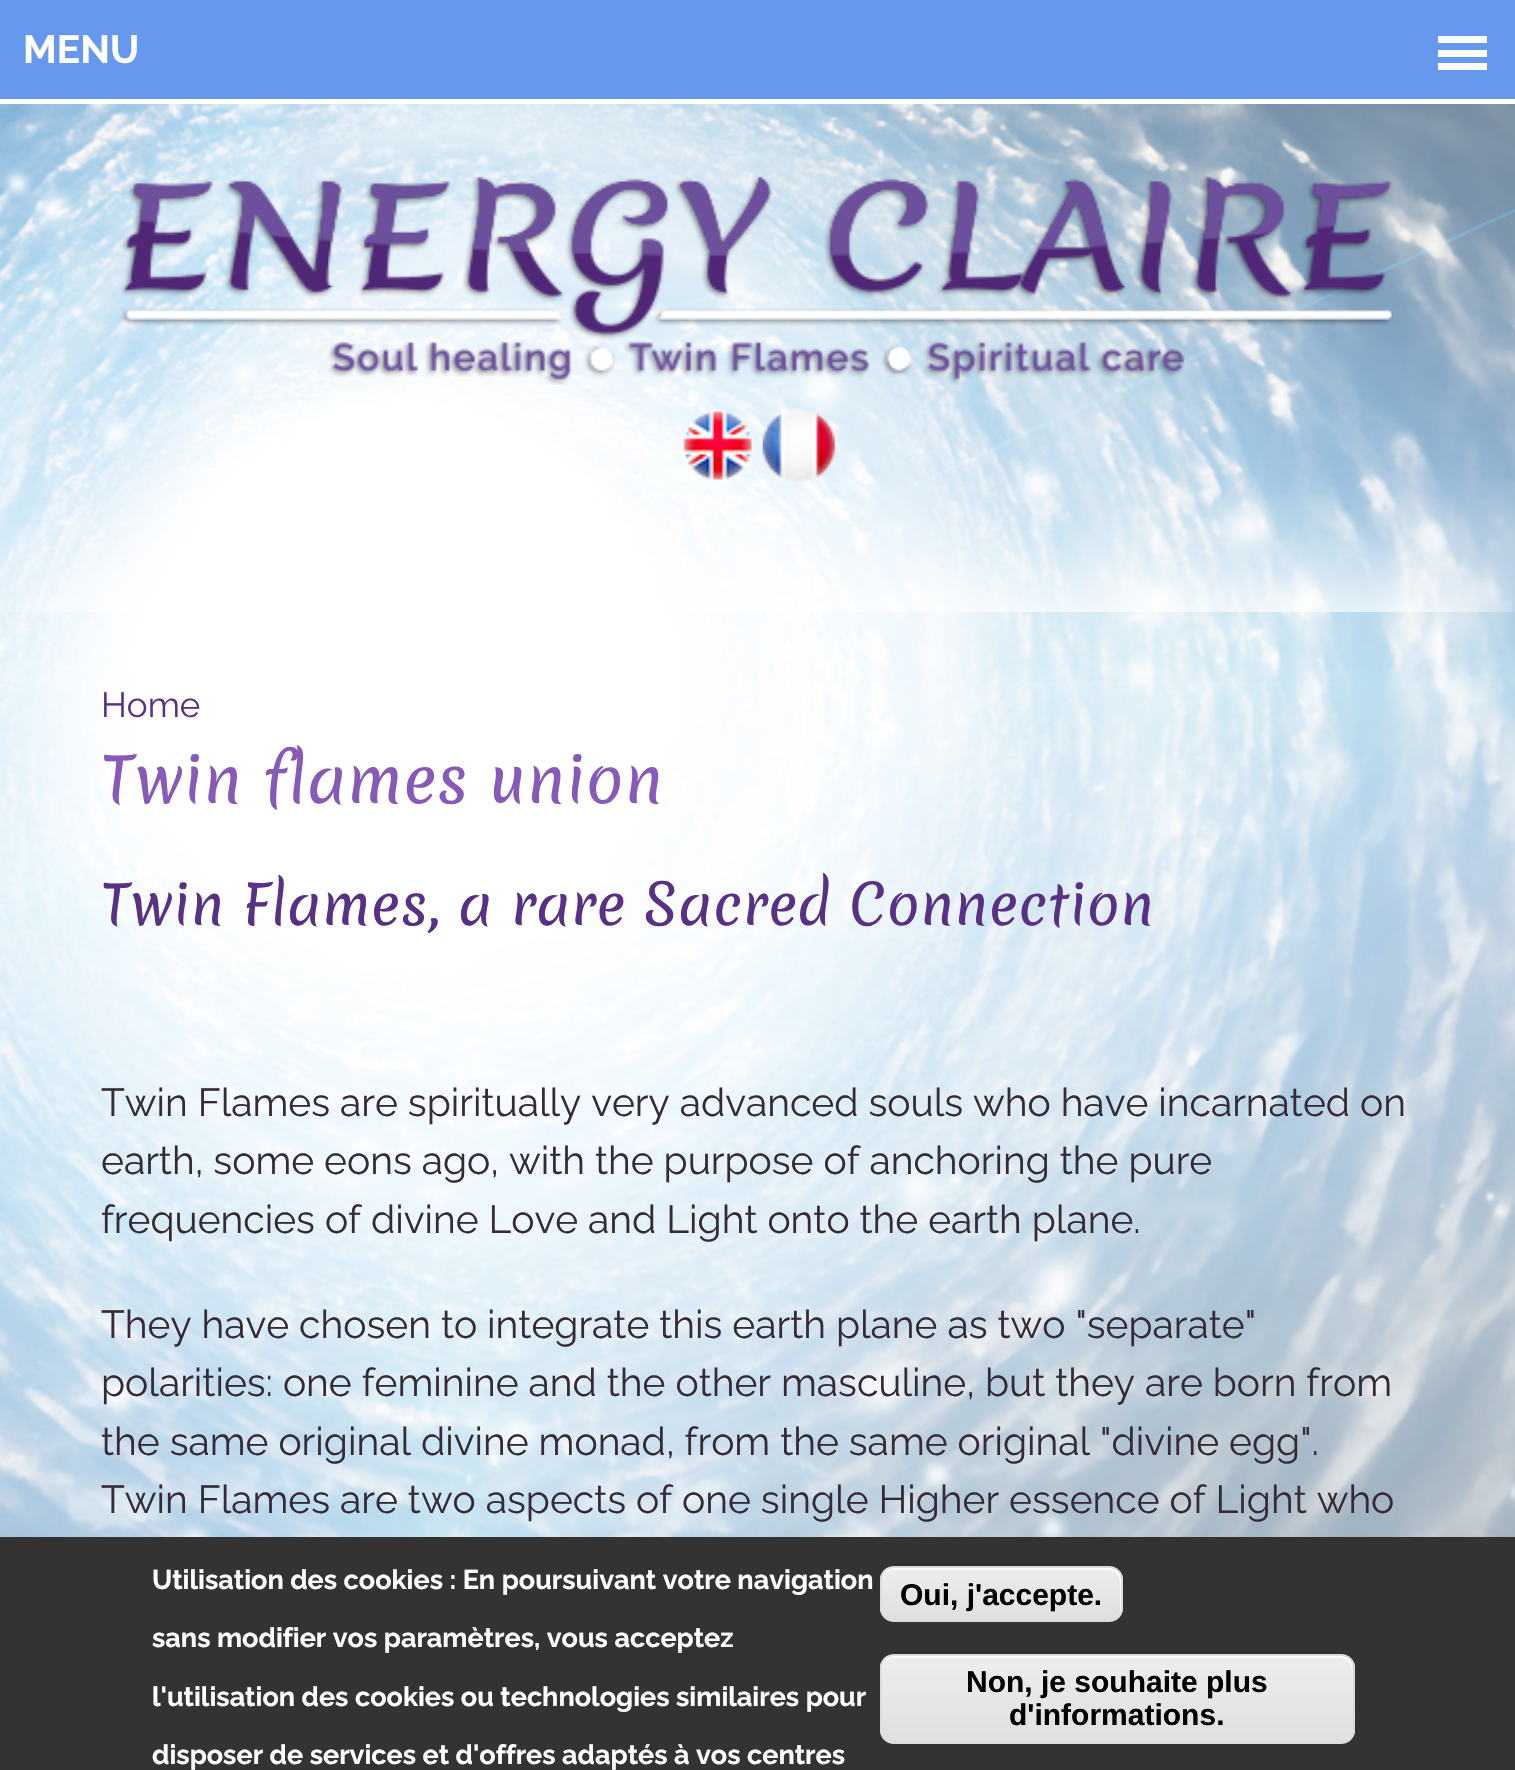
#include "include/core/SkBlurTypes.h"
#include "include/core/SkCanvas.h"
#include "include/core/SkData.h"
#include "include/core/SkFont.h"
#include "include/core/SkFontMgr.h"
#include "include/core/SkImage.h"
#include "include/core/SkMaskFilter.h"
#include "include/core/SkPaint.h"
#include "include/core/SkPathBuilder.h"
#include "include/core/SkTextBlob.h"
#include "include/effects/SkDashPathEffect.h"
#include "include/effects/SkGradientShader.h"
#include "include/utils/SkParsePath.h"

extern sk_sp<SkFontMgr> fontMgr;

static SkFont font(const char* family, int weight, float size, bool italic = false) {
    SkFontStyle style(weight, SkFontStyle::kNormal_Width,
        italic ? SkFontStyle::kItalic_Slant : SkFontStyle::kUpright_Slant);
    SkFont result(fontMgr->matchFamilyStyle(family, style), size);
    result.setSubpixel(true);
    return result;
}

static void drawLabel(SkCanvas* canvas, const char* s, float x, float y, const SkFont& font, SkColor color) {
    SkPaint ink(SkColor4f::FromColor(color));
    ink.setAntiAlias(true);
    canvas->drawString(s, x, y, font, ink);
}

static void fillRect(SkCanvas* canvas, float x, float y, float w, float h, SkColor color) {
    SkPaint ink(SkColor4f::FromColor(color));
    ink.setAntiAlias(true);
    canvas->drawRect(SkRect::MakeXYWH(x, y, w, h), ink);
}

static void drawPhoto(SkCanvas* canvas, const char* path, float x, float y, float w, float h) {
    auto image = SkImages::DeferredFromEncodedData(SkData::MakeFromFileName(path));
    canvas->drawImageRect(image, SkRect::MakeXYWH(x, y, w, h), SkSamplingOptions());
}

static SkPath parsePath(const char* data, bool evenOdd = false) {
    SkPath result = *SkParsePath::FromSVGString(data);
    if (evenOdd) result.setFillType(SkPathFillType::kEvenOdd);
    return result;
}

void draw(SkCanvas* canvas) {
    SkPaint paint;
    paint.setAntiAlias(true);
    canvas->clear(0xFFFFFFFF);
    drawPhoto(canvas, "assets/img1.png", 0, 104, 1515, 1433);
    fillRect(canvas, 0, 0, 1515, 99, 0xFF6699EE);
    SkFont font1 = font("Raleway", 700, 39);
    drawLabel(canvas, "MENU", 23, 63, font1, 0xFFFFFFFF);
    fillRect(canvas, 1438, 36, 49, 7, 0xFFFFFFFF);
    fillRect(canvas, 1438, 50, 49, 7, 0xFFFFFFFF);
    fillRect(canvas, 1438, 63, 49, 7, 0xFFFFFFFF);
    drawPhoto(canvas, "assets/img2.png", 120, 176, 1273, 209);
    canvas->save();
    canvas->clipRect(SkRect::MakeXYWH(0, 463, 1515, 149));
    paint.setColor(0xFFFFFFFF);
    paint.setMaskFilter(SkMaskFilter::MakeBlur(kNormal_SkBlurStyle, 56));
    canvas->drawRect(SkRect::MakeXYWH(0, 578, 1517, 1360), paint);
    paint.setMaskFilter(nullptr);
    canvas->restore();
    drawPhoto(canvas, "assets/img3.png", 682, 409, 72, 71);
    drawPhoto(canvas, "assets/img4.png", 762, 409, 73, 73);
    fillRect(canvas, 0, 612, 1515, 925, 0x40FFFFFF);
    SkFont font2 = font("Raleway", 400, 35);
    drawLabel(canvas, "Home", 101, 717, font2, 0xFF583085);
    SkFont font3 = font("Merienda", 400, 62.5f);
    drawLabel(canvas, "Twin flames union", 101, 803, font3, 0xFF875AB8);
    SkFont font4 = font("Merienda", 400, 54.6f);
    drawLabel(canvas, "Twin Flames, a rare Sacred Connection", 101, 925, font4, 0xFF583085);
    SkFont font5 = font("Raleway", 400, 39);
    drawLabel(canvas, "Twin Flames are spiritually very advanced souls who have incarnated on", 101, 1116, font5, 0xFF342B37);
    drawLabel(canvas, "earth, some eons ago, with the purpose of anchoring the pure", 101, 1174, font5, 0xFF342B37);
    drawLabel(canvas, "frequencies of divine Love and Light onto the earth plane.", 101, 1233, font5, 0xFF342B37);
    drawLabel(canvas, "They have chosen to integrate this earth plane as two \"separate\"", 101, 1338, font5, 0xFF342B37);
    drawLabel(canvas, "polarities: one feminine and the other masculine, but they are born from", 101, 1396, font5, 0xFF342B37);
    drawLabel(canvas, "the same original divine monad, from the same original \"divine egg\".", 101, 1455, font5, 0xFF342B37);
    drawLabel(canvas, "Twin Flames are two aspects of one single Higher essence of Light who", 101, 1513, font5, 0xFF342B37);
    fillRect(canvas, 0, 1537, 1515, 233, 0xFF333333);
    SkFont font6 = font("Raleway", 700, 27);
    drawLabel(canvas, "Utilisation des cookies : En poursuivant votre navigation", 152, 1589, font6, 0xFFFFFFFF);
    drawLabel(canvas, "sans modifier vos paramètres, vous acceptez", 152, 1647, font6, 0xFFFFFFFF);
    drawLabel(canvas, "l'utilisation des cookies ou technologies similaires pour", 152, 1706, font6, 0xFFFFFFFF);
    drawLabel(canvas, "disposer de services et d'offres adaptés à vos centres", 152, 1764, font6, 0xFFFFFFFF);
    canvas->save();
    canvas->clipPath(parsePath("M894 1566H1109C1116.5 1566 1123 1572.5 1123 1580V1608C1123 1615.5 1116.5 1622 1109 1622H894C886.5 1622 880 1615.5 880 1608V1580C880 1572.5 886.5 1566 894 1566Z"), true);
    {
        const SkColor colors[] = {0xFFEDEDED, 0xFFDFDFDF};
        const float stops[] = {0.05f, 1};
        const SkPoint ends[] = {{1001, 1568}, {1001, 1620}};
        paint.setShader(SkGradientShader::MakeLinear(ends, colors, stops, 2, SkTileMode::kClamp));
        paint.setAlpha(255);
    }
    canvas->drawRect(SkRect::MakeXYWH(880, 1568, 243, 52), paint);
    canvas->restore();
    paint.setShader(nullptr);
    paint.setColor(0xFFFFFFFF);
    canvas->drawPath(parsePath("M893 1570H1109C1115 1570 1120 1576 1120 1582V1611L1119 1615C1120 1613 1121 1611 1121 1609V1579C1121 1573 1116 1568 1110 1568H893C887 1568 882 1573 882 1579V1582C882 1576 887 1570 893 1570Z"), paint);
    paint.setStroke(true);
    paint.setStrokeWidth(2);
    paint.setColor(0xFFDCDCDC);
    canvas->drawRoundRect(SkRect::MakeXYWH(881, 1567, 241, 54), 13, 13, paint);
    SkFont font7 = font("Liberation Sans", 700, 30);
    drawLabel(canvas, "Oui, j'accepte.", 900, 1605, font7, 0xFF000000);
    canvas->save();
    canvas->clipPath(parsePath("M894 1654H1341C1348.5 1654 1355 1660.5 1355 1668V1730C1355 1737.5 1348.5 1744 1341 1744H894C886.5 1744 880 1737.5 880 1730V1668C880 1660.5 886.5 1654 894 1654Z"), true);
    paint.setStroke(false);
    {
        const SkColor colors[] = {0xFFEDEDED, 0xFFDFDFDF};
        const float stops[] = {0.05f, 1};
        const SkPoint ends[] = {{1117, 1656}, {1117, 1742}};
        paint.setShader(SkGradientShader::MakeLinear(ends, colors, stops, 2, SkTileMode::kClamp));
        paint.setAlpha(255);
    }
    canvas->drawRect(SkRect::MakeXYWH(880, 1656, 475, 86), paint);
    canvas->restore();
    paint.setShader(nullptr);
    paint.setColor(0xFFFFFFFF);
    canvas->drawPath(parsePath("M893 1658H1341C1347 1658 1352 1663 1352 1670V1667C1352 1661 1347 1656 1341 1656H893C887 1656 882 1661 882 1667V1670C882 1663 887 1658 893 1658Z"), paint);
    paint.setStroke(true);
    paint.setColor(0xFFDCDCDC);
    canvas->drawRoundRect(SkRect::MakeXYWH(881, 1655, 473, 88), 13, 13, paint);
    drawLabel(canvas, "Non, je souhaite plus", 966, 1692, font7, 0xFF000000);
    drawLabel(canvas, "d'informations.", 1009, 1725, font7, 0xFF000000);
}
